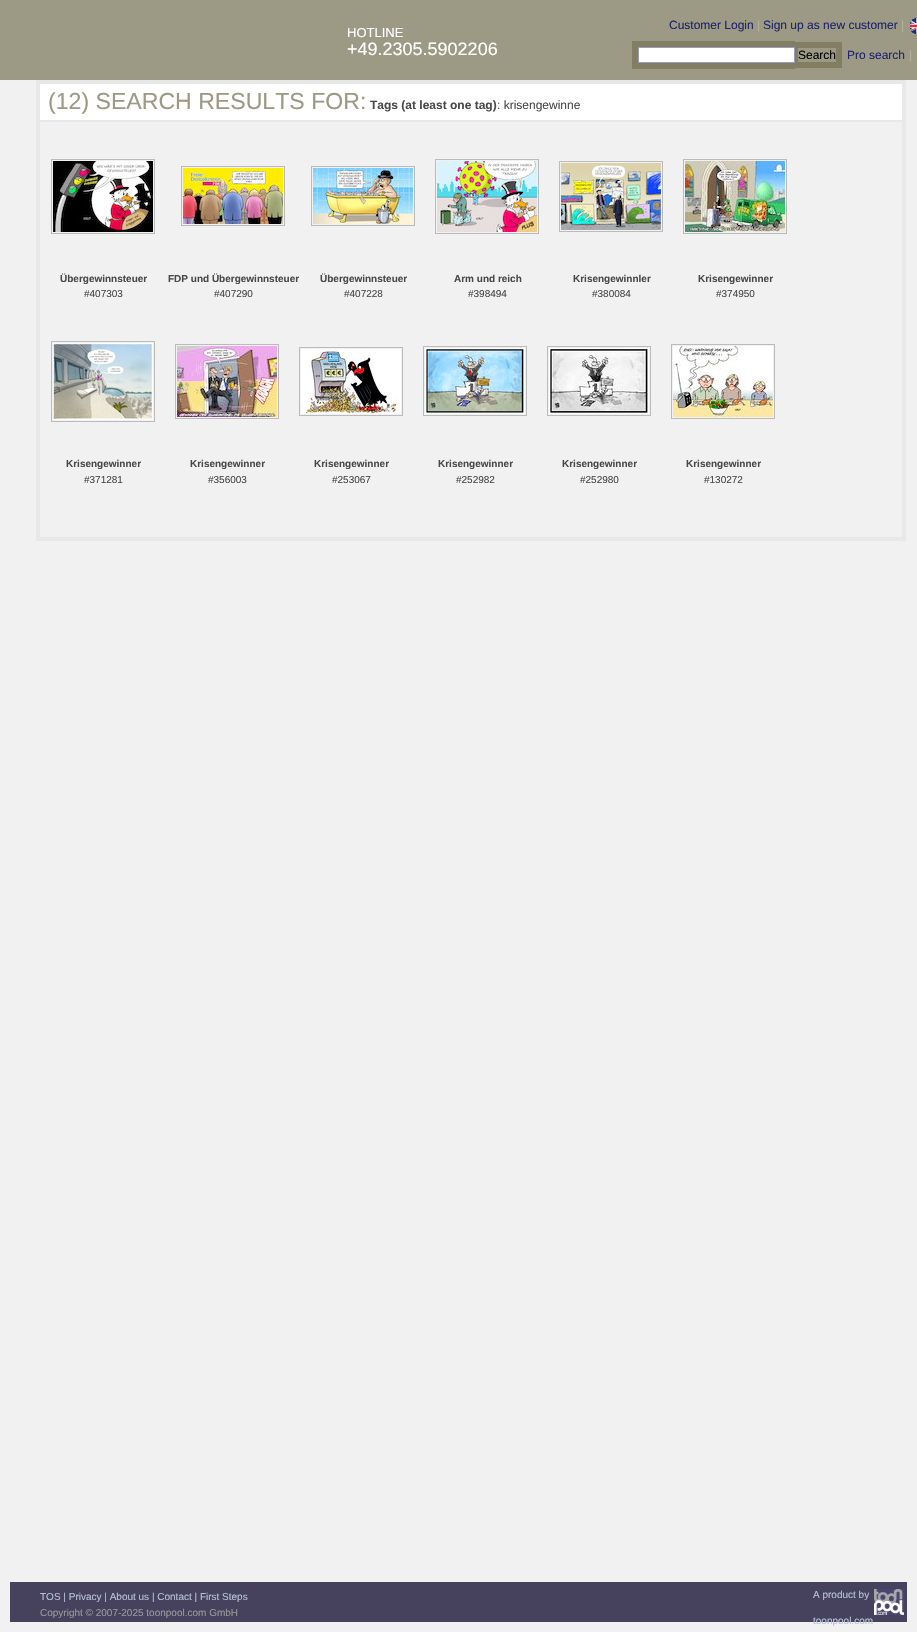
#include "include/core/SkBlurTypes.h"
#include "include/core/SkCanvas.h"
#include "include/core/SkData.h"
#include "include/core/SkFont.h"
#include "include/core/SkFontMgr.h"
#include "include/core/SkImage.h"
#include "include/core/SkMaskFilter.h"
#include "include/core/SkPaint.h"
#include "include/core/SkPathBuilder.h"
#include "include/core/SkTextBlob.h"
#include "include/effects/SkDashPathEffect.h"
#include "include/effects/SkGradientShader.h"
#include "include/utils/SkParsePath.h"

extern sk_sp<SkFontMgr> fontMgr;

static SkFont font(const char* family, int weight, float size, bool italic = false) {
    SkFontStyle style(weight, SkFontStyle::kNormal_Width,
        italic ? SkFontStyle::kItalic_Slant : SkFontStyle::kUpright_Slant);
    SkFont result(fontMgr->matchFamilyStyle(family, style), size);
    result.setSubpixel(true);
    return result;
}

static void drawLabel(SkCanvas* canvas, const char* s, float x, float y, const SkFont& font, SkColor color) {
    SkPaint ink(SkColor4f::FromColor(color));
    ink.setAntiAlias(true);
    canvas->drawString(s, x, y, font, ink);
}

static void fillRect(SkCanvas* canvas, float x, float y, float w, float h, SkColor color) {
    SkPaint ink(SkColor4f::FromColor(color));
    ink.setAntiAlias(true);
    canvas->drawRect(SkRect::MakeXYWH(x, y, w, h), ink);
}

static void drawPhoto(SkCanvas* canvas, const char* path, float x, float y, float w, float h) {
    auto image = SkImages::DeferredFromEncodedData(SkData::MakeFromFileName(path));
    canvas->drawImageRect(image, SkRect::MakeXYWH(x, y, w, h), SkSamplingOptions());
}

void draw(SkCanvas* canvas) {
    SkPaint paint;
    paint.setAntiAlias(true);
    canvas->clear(0xFFF1F1F1);
    fillRect(canvas, 0, 0, 917, 80, 0xFF9C9984);
    SkFont font1 = font("Liberation Sans", 400, 13);
    drawLabel(canvas, "HOTLINE", 347, 37, font1, 0xFFFFFFFF);
    SkFont font2 = font("Liberation Sans", 400, 18);
    drawLabel(canvas, "+49.2305.5902206", 347, 55, font2, 0xFFFFFFFF);
    SkFont font3 = font("Liberation Sans", 400, 12);
    drawLabel(canvas, "Customer Login", 669, 29, font3, 0xFF1D246C);
    drawLabel(canvas, "|", 757, 29, font3, 0xFFB5B29B);
    drawLabel(canvas, "Sign up as new customer", 763, 29, font3, 0xFF1D246C);
    drawLabel(canvas, "|", 901, 29, font3, 0xFFB5B29B);
    drawPhoto(canvas, "assets/img1.png", 910, 18, 7, 16);
    fillRect(canvas, 632, 41, 163, 28, 0xFF827E63);
    fillRect(canvas, 795, 42, 47, 26, 0xFF827E63);
    paint.setColor(0xFFFFFFFF);
    canvas->drawRect(SkRect::MakeXYWH(638.5f, 47.5f, 156, 15), paint);
    paint.setStroke(true);
    paint.setStrokeWidth(1);
    paint.setColor(0xFF999CBB);
    canvas->drawRect(SkRect::MakeXYWH(638.5f, 47.5f, 156, 15), paint);
    fillRect(canvas, 798, 48, 38, 14, 0xFF9C9984);
    drawLabel(canvas, "Search", 798, 59, font3, 0xFF000000);
    drawLabel(canvas, "Pro search", 847, 59, font3, 0xFF1D246C);
    drawLabel(canvas, "|", 909, 59, font3, 0xFFB5B29B);
    paint.setStrokeWidth(4);
    paint.setColor(0xFFE8E8E8);
    canvas->drawRect(SkRect::MakeXYWH(38, 82, 866, 457), paint);
    fillRect(canvas, 40, 84, 862, 36, 0xFFFFFFFF);
    SkFont font4 = font("Liberation Sans", 400, 23.1f);
    drawLabel(canvas, "(12) SEARCH RESULTS FOR:", 48, 109, font4, 0xFF9C9984);
    SkFont font5 = font("Liberation Sans", 700, 12);
    drawLabel(canvas, "Tags (at least one tag)", 370, 109, font5, 0xFF494949);
    drawLabel(canvas, ": krisengewinne", 497, 109, font3, 0xFF494949);
    fillRect(canvas, 40, 120, 862, 2, 0xFFE8E8E8);
    paint.setStrokeWidth(1);
    paint.setColor(0xFFBBBBBB);
    canvas->drawRect(SkRect::MakeXYWH(51.5f, 159.5f, 103, 74), paint);
    drawPhoto(canvas, "assets/img2.png", 53, 161, 100, 71);
    SkFont font6 = font("Liberation Sans", 700, 10);
    drawLabel(canvas, "Übergewinnsteuer", 60, 282, font6, 0xFF494949);
    SkFont font7 = font("Liberation Sans", 400, 10);
    drawLabel(canvas, "#407303", 84, 297, font7, 0xFF494949);
    canvas->drawRect(SkRect::MakeXYWH(181.5f, 166.5f, 103, 59), paint);
    drawPhoto(canvas, "assets/img3.png", 183, 168, 100, 56);
    drawLabel(canvas, "FDP und Übergewinnsteuer", 168, 282, font6, 0xFF494949);
    drawLabel(canvas, "#407290", 214, 297, font7, 0xFF494949);
    canvas->drawRect(SkRect::MakeXYWH(311.5f, 166.5f, 103, 59), paint);
    drawPhoto(canvas, "assets/img4.png", 313, 168, 100, 56);
    drawLabel(canvas, "Übergewinnsteuer", 320, 282, font6, 0xFF494949);
    drawLabel(canvas, "#407228", 344, 297, font7, 0xFF494949);
    canvas->drawRect(SkRect::MakeXYWH(435.5f, 159.5f, 103, 74), paint);
    drawPhoto(canvas, "assets/img5.png", 437, 161, 100, 71);
    drawLabel(canvas, "Arm und reich", 454, 282, font6, 0xFF494949);
    drawLabel(canvas, "#398494", 468, 297, font7, 0xFF494949);
    canvas->drawRect(SkRect::MakeXYWH(559.5f, 161.5f, 103, 70), paint);
    drawPhoto(canvas, "assets/img6.png", 561, 163, 100, 67);
    drawLabel(canvas, "Krisengewinnler", 573, 282, font6, 0xFF494949);
    drawLabel(canvas, "#380084", 592, 297, font7, 0xFF494949);
    canvas->drawRect(SkRect::MakeXYWH(683.5f, 159.5f, 103, 74), paint);
    drawPhoto(canvas, "assets/img7.png", 685, 161, 100, 71);
    drawLabel(canvas, "Krisengewinner", 698, 282, font6, 0xFF494949);
    drawLabel(canvas, "#374950", 716, 297, font7, 0xFF494949);
    canvas->drawRect(SkRect::MakeXYWH(51.5f, 341.5f, 103, 80), paint);
    drawPhoto(canvas, "assets/img8.png", 53, 343, 100, 77);
    drawLabel(canvas, "Krisengewinner", 66, 467, font6, 0xFF494949);
    drawLabel(canvas, "#371281", 84, 483, font7, 0xFF494949);
    canvas->drawRect(SkRect::MakeXYWH(175.5f, 344.5f, 103, 74), paint);
    drawPhoto(canvas, "assets/img9.png", 177, 346, 100, 71);
    drawLabel(canvas, "Krisengewinner", 190, 467, font6, 0xFF494949);
    drawLabel(canvas, "#356003", 208, 483, font7, 0xFF494949);
    canvas->drawRect(SkRect::MakeXYWH(299.5f, 347.5f, 103, 68), paint);
    drawPhoto(canvas, "assets/img10.png", 301, 349, 100, 65);
    drawLabel(canvas, "Krisengewinner", 314, 467, font6, 0xFF494949);
    drawLabel(canvas, "#253067", 332, 483, font7, 0xFF494949);
    canvas->drawRect(SkRect::MakeXYWH(423.5f, 346.5f, 103, 69), paint);
    drawPhoto(canvas, "assets/img11.png", 425, 348, 100, 66);
    drawLabel(canvas, "Krisengewinner", 438, 467, font6, 0xFF494949);
    drawLabel(canvas, "#252982", 456, 483, font7, 0xFF494949);
    canvas->drawRect(SkRect::MakeXYWH(547.5f, 346.5f, 103, 69), paint);
    drawPhoto(canvas, "assets/img12.png", 549, 348, 100, 66);
    drawLabel(canvas, "Krisengewinner", 562, 467, font6, 0xFF494949);
    drawLabel(canvas, "#252980", 580, 483, font7, 0xFF494949);
    canvas->drawRect(SkRect::MakeXYWH(671.5f, 344.5f, 103, 74), paint);
    drawPhoto(canvas, "assets/img13.png", 673, 346, 100, 71);
    drawLabel(canvas, "Krisengewinner", 686, 467, font6, 0xFF494949);
    drawLabel(canvas, "#130272", 704, 483, font7, 0xFF494949);
    fillRect(canvas, 10, 1582, 897, 40, 0xFF46415C);
    drawLabel(canvas, "TOS | Privacy | About us | Contact | First Steps", 40, 1600, font7, 0xFFB6C2D8);
    drawLabel(canvas, "Copyright © 2007-2025 toonpool.com GmbH", 40, 1616, font7, 0xFF999999);
    drawLabel(canvas, "A product by", 813, 1598, font7, 0xFFB6C2D8);
    drawPhoto(canvas, "assets/img14.png", 874, 1589, 30, 26);
    drawLabel(canvas, "toonpool.com", 813, 1624, font7, 0xFFB6C2D8);
}
